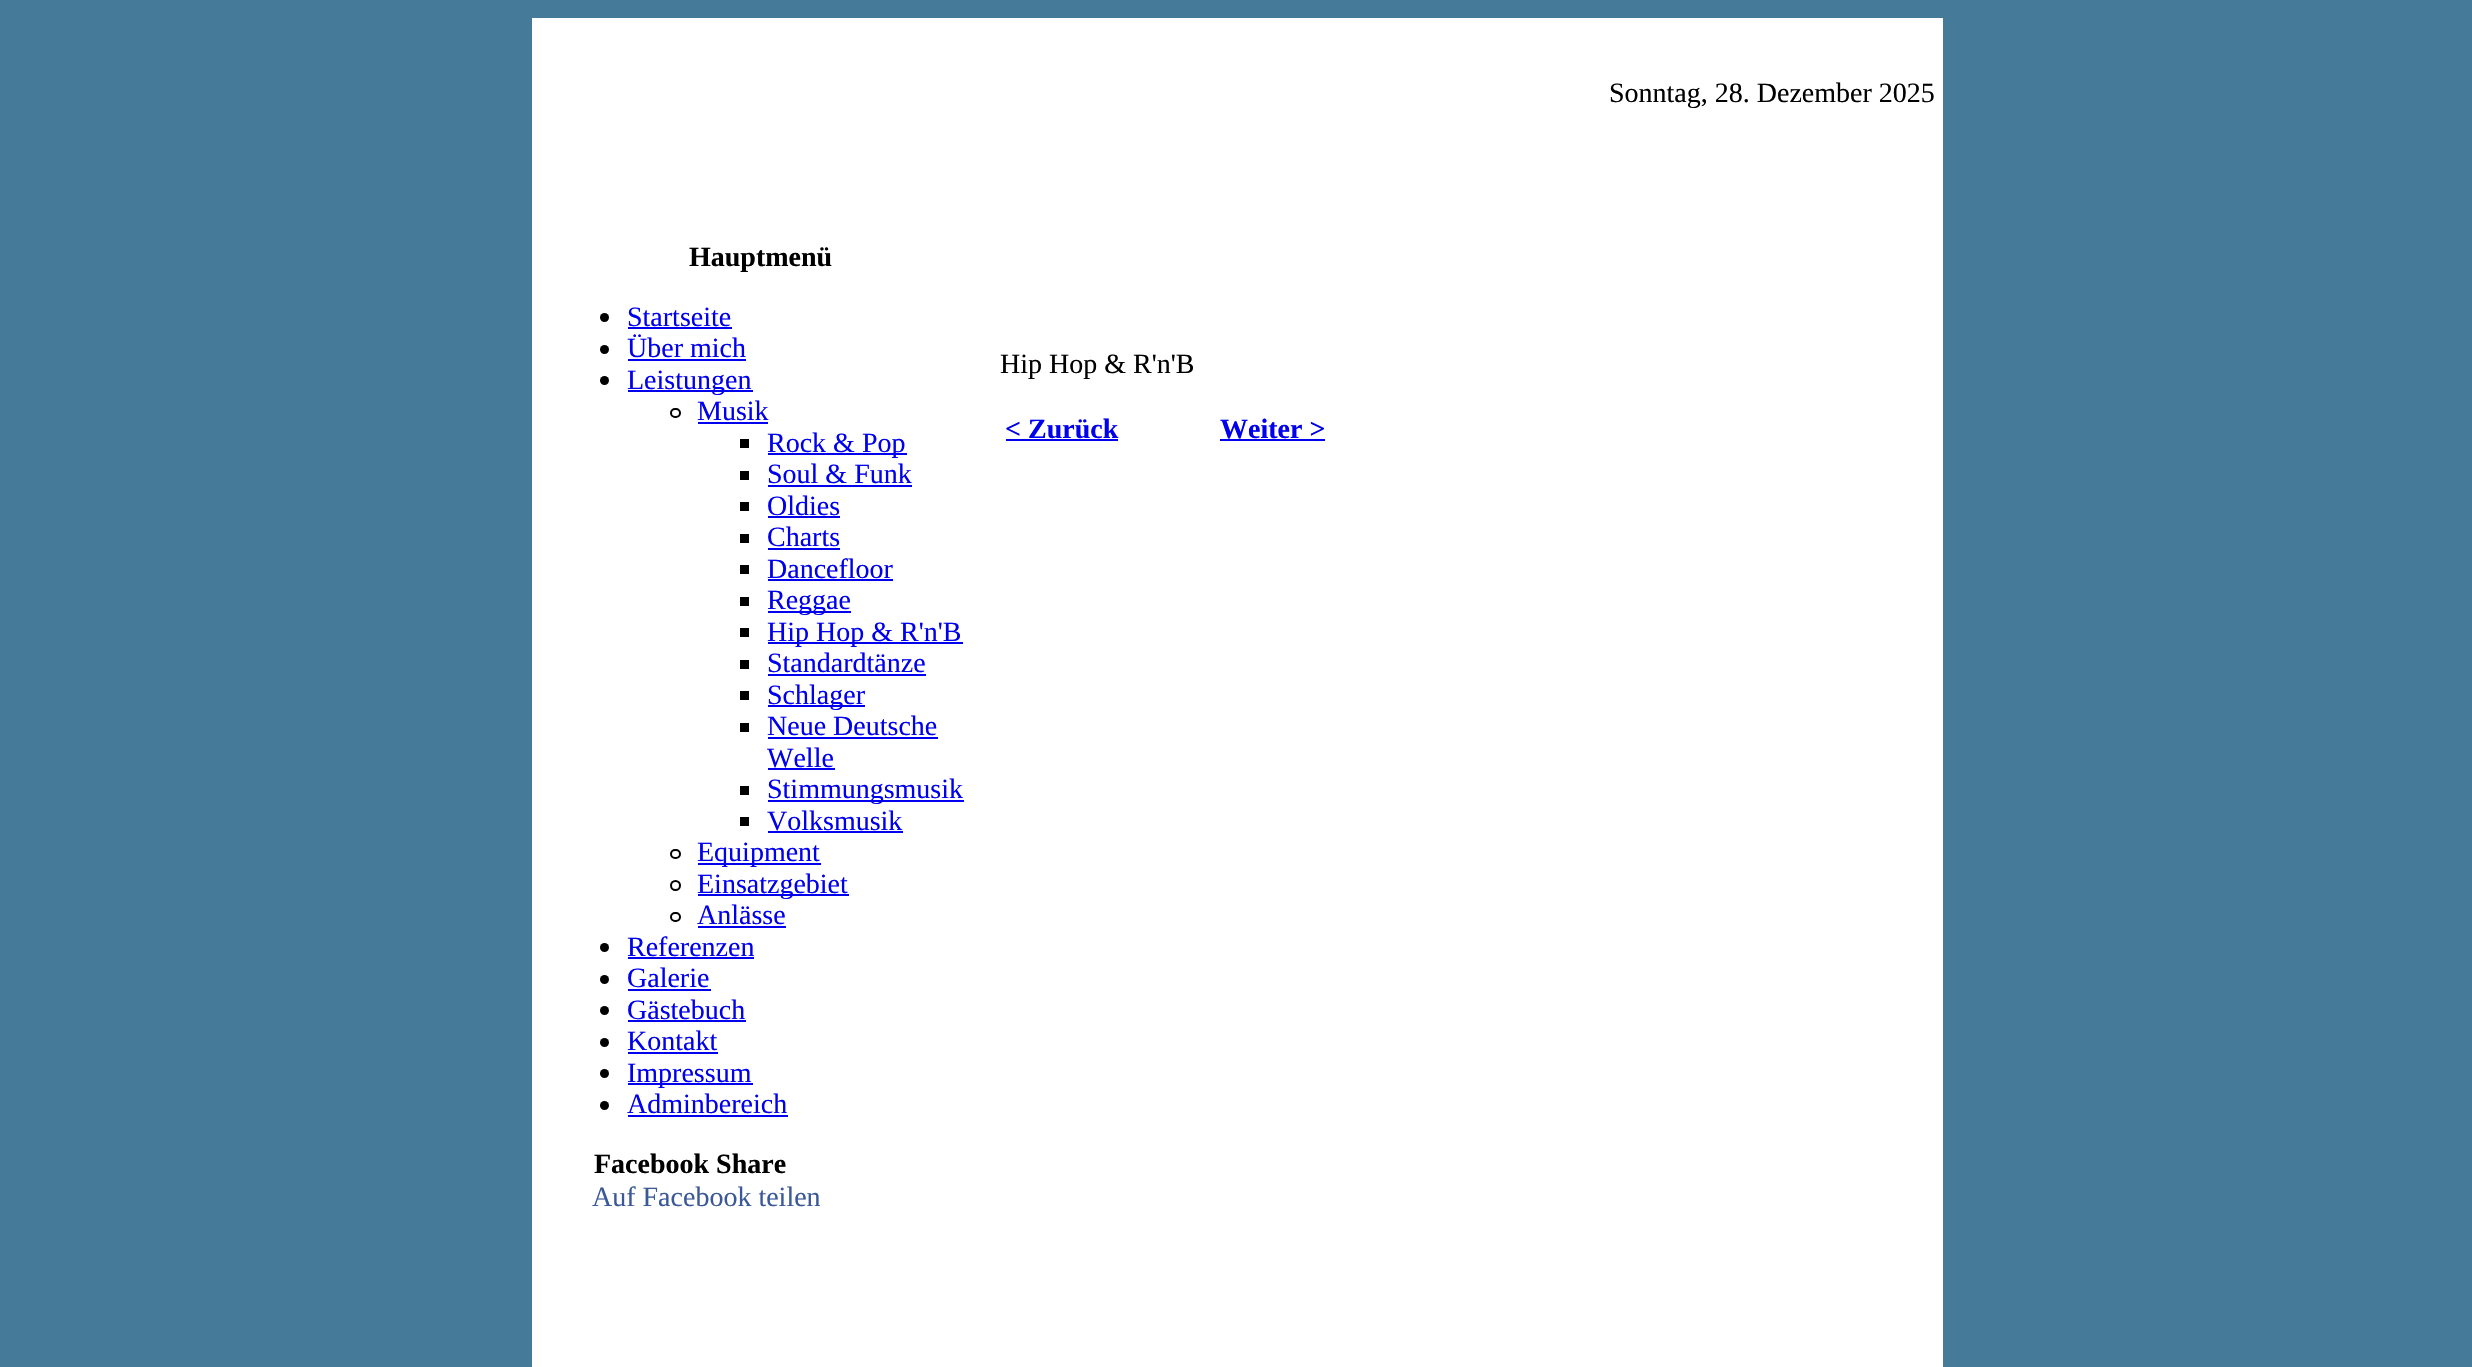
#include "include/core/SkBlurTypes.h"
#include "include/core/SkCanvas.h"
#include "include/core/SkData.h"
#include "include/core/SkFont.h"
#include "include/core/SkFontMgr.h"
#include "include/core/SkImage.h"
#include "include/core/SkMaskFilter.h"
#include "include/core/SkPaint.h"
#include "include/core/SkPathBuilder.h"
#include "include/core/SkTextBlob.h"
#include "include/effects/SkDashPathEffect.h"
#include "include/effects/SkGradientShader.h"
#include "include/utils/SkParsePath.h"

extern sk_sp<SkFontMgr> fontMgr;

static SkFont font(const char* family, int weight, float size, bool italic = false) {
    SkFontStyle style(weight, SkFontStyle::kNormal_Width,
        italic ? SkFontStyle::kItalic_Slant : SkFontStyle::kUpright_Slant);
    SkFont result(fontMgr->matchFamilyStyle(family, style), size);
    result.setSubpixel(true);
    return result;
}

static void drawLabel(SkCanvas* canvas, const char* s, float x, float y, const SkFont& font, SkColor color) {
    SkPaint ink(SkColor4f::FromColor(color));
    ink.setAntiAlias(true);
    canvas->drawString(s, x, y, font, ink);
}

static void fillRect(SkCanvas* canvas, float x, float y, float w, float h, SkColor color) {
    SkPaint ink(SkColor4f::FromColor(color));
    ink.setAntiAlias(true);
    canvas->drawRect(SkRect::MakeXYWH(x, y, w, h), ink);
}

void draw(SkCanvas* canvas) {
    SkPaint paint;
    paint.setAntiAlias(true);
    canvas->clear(0xFF467A99);
    fillRect(canvas, 532, 18, 1411, 1349, 0xFFFFFFFF);
    SkFont font1 = font("Liberation Serif", 400, 28);
    drawLabel(canvas, "Sonntag, 28. Dezember 2025", 1609, 102, font1, 0xFF000000);
    SkFont font2 = font("Liberation Serif", 700, 28);
    drawLabel(canvas, "Hauptmenü", 689, 266, font2, 0xFF000000);
    paint.setColor(0xFF000000);
    canvas->drawCircle(604.5f, 317.5f, 4.5f, paint);
    drawLabel(canvas, "Startseite", 627, 326, font1, 0xFF0000EE);
    fillRect(canvas, 628, 327, 104, 2, 0xFF0000EE);
    canvas->drawCircle(604.5f, 349.5f, 4.5f, paint);
    drawLabel(canvas, "Über mich", 627, 357, font1, 0xFF0000EE);
    fillRect(canvas, 628, 359, 118, 2, 0xFF0000EE);
    canvas->drawCircle(604.5f, 380.5f, 4.5f, paint);
    fillRect(canvas, 628, 390, 125, 2, 0xFF0000EE);
    drawLabel(canvas, "Leistungen", 627, 389, font1, 0xFF0000EE);
    paint.setStroke(true);
    paint.setStrokeWidth(2);
    canvas->drawRoundRect(SkRect::MakeXYWH(671, 409, 9, 8), 4, 4, paint);
    drawLabel(canvas, "Musik", 697, 420, font1, 0xFF0000EE);
    fillRect(canvas, 698, 422, 70, 2, 0xFF0000EE);
    fillRect(canvas, 740, 439, 9, 9, 0xFF000000);
    fillRect(canvas, 768, 453, 139, 2, 0xFF0000EE);
    drawLabel(canvas, "Rock & Pop", 767, 452, font1, 0xFF0000EE);
    fillRect(canvas, 740, 471, 9, 9, 0xFF000000);
    drawLabel(canvas, "Soul & Funk", 767, 483, font1, 0xFF0000EE);
    fillRect(canvas, 768, 485, 144, 2, 0xFF0000EE);
    fillRect(canvas, 740, 502, 9, 9, 0xFF000000);
    drawLabel(canvas, "Oldies", 767, 515, font1, 0xFF0000EE);
    fillRect(canvas, 768, 516, 72, 2, 0xFF0000EE);
    fillRect(canvas, 740, 534, 9, 9, 0xFF000000);
    drawLabel(canvas, "Charts", 767, 546, font1, 0xFF0000EE);
    fillRect(canvas, 768, 548, 72, 2, 0xFF0000EE);
    fillRect(canvas, 740, 565, 9, 9, 0xFF000000);
    drawLabel(canvas, "Dancefloor", 767, 578, font1, 0xFF0000EE);
    fillRect(canvas, 768, 579, 125, 2, 0xFF0000EE);
    fillRect(canvas, 740, 597, 9, 9, 0xFF000000);
    fillRect(canvas, 768, 611, 83, 2, 0xFF0000EE);
    drawLabel(canvas, "Reggae", 767, 609, font1, 0xFF0000EE);
    fillRect(canvas, 740, 628, 9, 9, 0xFF000000);
    fillRect(canvas, 768, 642, 195, 2, 0xFF0000EE);
    drawLabel(canvas, "Hip Hop & R'n'B", 767, 641, font1, 0xFF0000EE);
    fillRect(canvas, 740, 660, 9, 9, 0xFF000000);
    drawLabel(canvas, "Standardtänze", 767, 672, font1, 0xFF0000EE);
    fillRect(canvas, 768, 674, 158, 2, 0xFF0000EE);
    fillRect(canvas, 740, 691, 9, 9, 0xFF000000);
    fillRect(canvas, 768, 705, 97, 2, 0xFF0000EE);
    drawLabel(canvas, "Schlager", 767, 704, font1, 0xFF0000EE);
    fillRect(canvas, 740, 723, 9, 9, 0xFF000000);
    drawLabel(canvas, "Neue Deutsche", 767, 735, font1, 0xFF0000EE);
    fillRect(canvas, 768, 737, 170, 2, 0xFF0000EE);
    drawLabel(canvas, "Welle", 767, 767, font1, 0xFF0000EE);
    fillRect(canvas, 768, 768, 67, 2, 0xFF0000EE);
    fillRect(canvas, 740, 786, 9, 9, 0xFF000000);
    fillRect(canvas, 768, 800, 196, 2, 0xFF0000EE);
    drawLabel(canvas, "Stimmungsmusik", 767, 798, font1, 0xFF0000EE);
    fillRect(canvas, 740, 817, 9, 9, 0xFF000000);
    drawLabel(canvas, "Volksmusik", 767, 830, font1, 0xFF0000EE);
    fillRect(canvas, 768, 831, 135, 2, 0xFF0000EE);
    canvas->drawRoundRect(SkRect::MakeXYWH(671, 850, 9, 8), 4, 4, paint);
    fillRect(canvas, 698, 863, 123, 2, 0xFF0000EE);
    drawLabel(canvas, "Equipment", 697, 861, font1, 0xFF0000EE);
    canvas->drawCircle(675.5f, 885.5f, 4.5f, paint);
    fillRect(canvas, 698, 894, 151, 2, 0xFF0000EE);
    drawLabel(canvas, "Einsatzgebiet", 697, 893, font1, 0xFF0000EE);
    canvas->drawRoundRect(SkRect::MakeXYWH(671, 913, 9, 8), 4, 4, paint);
    drawLabel(canvas, "Anlässe", 697, 924, font1, 0xFF0000EE);
    fillRect(canvas, 698, 926, 88, 2, 0xFF0000EE);
    paint.setStroke(false);
    canvas->drawCircle(604.5f, 947.5f, 4.5f, paint);
    drawLabel(canvas, "Referenzen", 627, 956, font1, 0xFF0000EE);
    fillRect(canvas, 628, 957, 126, 2, 0xFF0000EE);
    canvas->drawCircle(604.5f, 979.5f, 4.5f, paint);
    drawLabel(canvas, "Galerie", 627, 987, font1, 0xFF0000EE);
    fillRect(canvas, 628, 989, 83, 2, 0xFF0000EE);
    canvas->drawCircle(604.5f, 1010.5f, 4.5f, paint);
    drawLabel(canvas, "Gästebuch", 627, 1019, font1, 0xFF0000EE);
    fillRect(canvas, 628, 1020, 118, 2, 0xFF0000EE);
    canvas->drawCircle(604.5f, 1042.5f, 4.5f, paint);
    drawLabel(canvas, "Kontakt", 627, 1050, font1, 0xFF0000EE);
    fillRect(canvas, 628, 1052, 90, 2, 0xFF0000EE);
    canvas->drawCircle(604.5f, 1073.5f, 4.5f, paint);
    fillRect(canvas, 628, 1083, 125, 2, 0xFF0000EE);
    drawLabel(canvas, "Impressum", 627, 1082, font1, 0xFF0000EE);
    canvas->drawCircle(604.5f, 1105.5f, 4.5f, paint);
    drawLabel(canvas, "Adminbereich", 627, 1113, font1, 0xFF0000EE);
    fillRect(canvas, 628, 1115, 160, 2, 0xFF0000EE);
    drawLabel(canvas, "Facebook Share", 594, 1173, font2, 0xFF000000);
    drawLabel(canvas, "Auf Facebook teilen", 592, 1206, font1, 0xFF3B5998);
    drawLabel(canvas, "Hip Hop & R'n'B", 1000, 373, font1, 0xFF000000);
    drawLabel(canvas, "< Zurück", 1005, 438, font2, 0xFF0000EE);
    fillRect(canvas, 1006, 439, 112, 2, 0xFF0000EE);
    drawLabel(canvas, "Weiter >", 1220, 438, font2, 0xFF0000EE);
    fillRect(canvas, 1220, 439, 105, 2, 0xFF0000EE);
}
